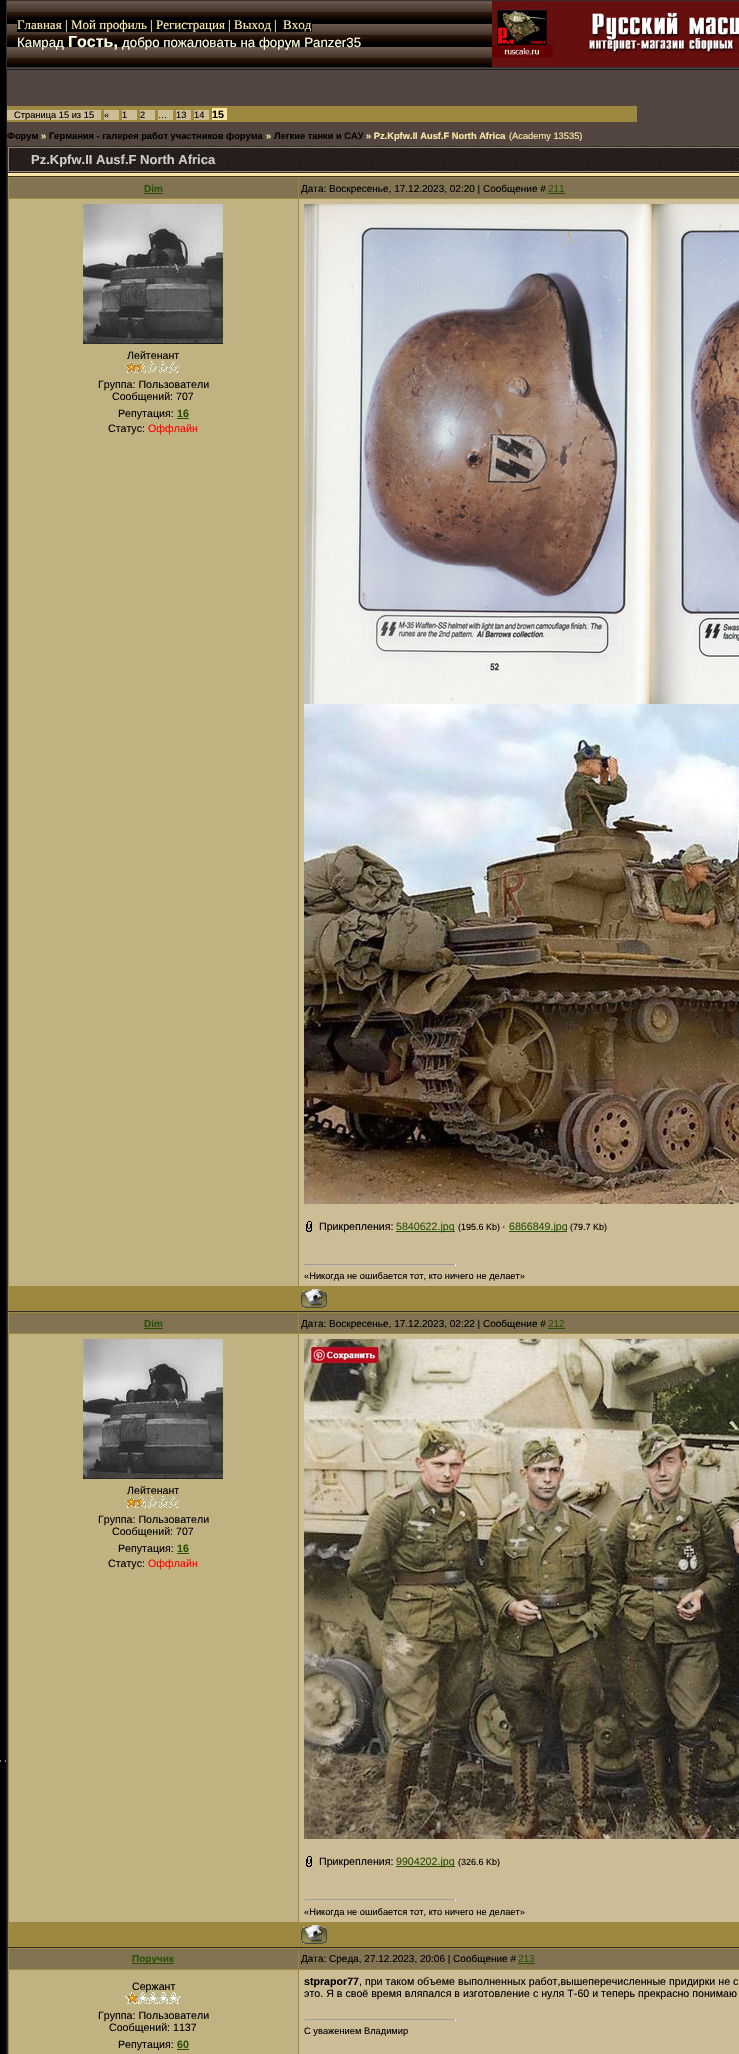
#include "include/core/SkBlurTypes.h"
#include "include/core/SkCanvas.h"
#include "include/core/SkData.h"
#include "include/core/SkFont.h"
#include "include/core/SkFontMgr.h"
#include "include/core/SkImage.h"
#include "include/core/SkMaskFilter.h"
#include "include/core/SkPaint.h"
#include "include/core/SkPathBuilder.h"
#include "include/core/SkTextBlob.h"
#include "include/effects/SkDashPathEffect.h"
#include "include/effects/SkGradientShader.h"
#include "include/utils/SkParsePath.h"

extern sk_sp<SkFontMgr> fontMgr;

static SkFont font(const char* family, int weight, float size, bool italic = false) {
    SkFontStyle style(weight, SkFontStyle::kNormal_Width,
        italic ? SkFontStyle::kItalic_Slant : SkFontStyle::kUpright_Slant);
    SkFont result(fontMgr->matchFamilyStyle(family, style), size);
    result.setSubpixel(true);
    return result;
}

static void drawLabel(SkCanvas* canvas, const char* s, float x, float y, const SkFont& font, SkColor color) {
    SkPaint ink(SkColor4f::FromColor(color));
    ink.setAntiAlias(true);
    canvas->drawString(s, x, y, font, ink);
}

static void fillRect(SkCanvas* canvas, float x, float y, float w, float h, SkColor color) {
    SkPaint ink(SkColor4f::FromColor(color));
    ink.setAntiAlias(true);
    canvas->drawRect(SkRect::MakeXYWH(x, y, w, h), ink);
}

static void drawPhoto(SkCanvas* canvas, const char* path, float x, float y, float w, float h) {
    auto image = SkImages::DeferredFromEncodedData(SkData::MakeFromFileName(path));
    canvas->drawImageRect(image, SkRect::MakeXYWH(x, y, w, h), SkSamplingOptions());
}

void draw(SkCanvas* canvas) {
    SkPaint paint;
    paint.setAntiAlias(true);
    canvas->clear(0xFF000000);
    drawPhoto(canvas, "assets/img1.png", 0, 1760, 6, 2);
    drawPhoto(canvas, "assets/img2.png", 7, 1, 485, 66);
    paint.setStroke(true);
    paint.setStrokeWidth(1);
    paint.setColor(0xFF352E2C);
    canvas->drawRect(SkRect::MakeXYWH(6.5f, 0.5f, 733, 67), paint);
    fillRect(canvas, 17, 17, 295, 15, 0xFF000000);
    SkFont font1 = font("Liberation Serif", 400, 13);
    drawLabel(canvas, "Главная", 17, 29, font1, 0xFFFFECAB);
    drawLabel(canvas, "|", 65, 29, font1, 0xFFFFFFE0);
    drawLabel(canvas, "Мой профиль", 71, 29, font1, 0xFFFFECAB);
    drawLabel(canvas, "|", 150, 29, font1, 0xFFFFFFE0);
    drawLabel(canvas, "Регистрация", 156, 29, font1, 0xFFFFECAB);
    drawLabel(canvas, "|", 228, 29, font1, 0xFFFFFFE0);
    drawLabel(canvas, "Выход", 234, 29, font1, 0xFFFFECAB);
    drawLabel(canvas, "|", 274, 29, font1, 0xFFFFFFE0);
    drawLabel(canvas, "Вход", 283, 29, font1, 0xFFFFECAB);
    SkFont font2 = font("Liberation Sans", 400, 13.3f);
    drawLabel(canvas, "Камрад", 17, 47, font2, 0xFFFFFFE0);
    SkFont font3 = font("Liberation Sans", 700, 16);
    drawLabel(canvas, "Гость,", 68, 47, font3, 0xFFFFFFE0);
    drawLabel(canvas, "добро пожаловать на форум Panzer35", 122, 47, font2, 0xFFFFFFE0);
    drawPhoto(canvas, "assets/img3.png", 492, 1, 247, 66);
    fillRect(canvas, 6, 68, 733, 1, 0xFF494949);
    fillRect(canvas, 7, 70, 732, 76, 0xFF534640);
    paint.setColor(0xFF1A1A1A);
    canvas->drawRect(SkRect::MakeXYWH(6.5f, 69.5f, 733, 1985), paint);
    fillRect(canvas, 7, 106, 630, 16, 0xFF9D8840);
    fillRect(canvas, 7, 110, 94, 10, 0xFFCDBD97);
    SkFont font4 = font("Liberation Sans", 400, 9.3f);
    drawLabel(canvas, "Страница 15 из 15", 14, 118, font4, 0xFF000000);
    fillRect(canvas, 104, 110, 15, 10, 0xFFCDBD97);
    drawLabel(canvas, "«", 104, 118, font4, 0xFF000000);
    fillRect(canvas, 122, 110, 15, 10, 0xFFCDBD97);
    drawLabel(canvas, "1", 122, 118, font4, 0xFF000000);
    fillRect(canvas, 140, 110, 15, 10, 0xFFCDBD97);
    drawLabel(canvas, "2", 140, 118, font4, 0xFF000000);
    fillRect(canvas, 158, 110, 15, 10, 0xFFCDBD97);
    drawLabel(canvas, "…", 158, 118, font4, 0xFF000000);
    fillRect(canvas, 176, 110, 15, 10, 0xFFCDBD97);
    drawLabel(canvas, "13", 176, 118, font4, 0xFF000000);
    fillRect(canvas, 194, 110, 15, 10, 0xFFCDBD97);
    drawLabel(canvas, "14", 194, 118, font4, 0xFF000000);
    fillRect(canvas, 212, 108, 15, 12, 0xFFF9E7A7);
    SkFont font5 = font("Liberation Sans", 700, 10.65f);
    drawLabel(canvas, "15", 212, 118, font5, 0xFF000000);
    SkFont font6 = font("Liberation Sans", 700, 9.3f);
    drawLabel(canvas, "Форум", 7, 139, font6, 0xFF000000);
    drawLabel(canvas, "»", 41, 139, font6, 0xFFF9E7A7);
    drawLabel(canvas, "Германия - галерея работ участников форума", 49, 139, font6, 0xFF000000);
    drawLabel(canvas, "»", 266, 139, font6, 0xFFF9E7A7);
    drawLabel(canvas, "Легкие танки и САУ", 274, 139, font6, 0xFF000000);
    drawLabel(canvas, "» Pz.Kpfw.II Ausf.F North Africa", 366, 139, font6, 0xFFF9E7A7);
    drawLabel(canvas, "(Academy 13535)", 509, 139, font4, 0xFFF9E7A7);
    fillRect(canvas, 7, 146, 732, 1908, 0xFF342C28);
    drawPhoto(canvas, "assets/img4.png", 9, 148, 730, 23);
    paint.setColor(0xFF988675);
    canvas->drawRect(SkRect::MakeXYWH(8.5f, 147.5f, 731, 24), paint);
    SkFont font7 = font("Liberation Sans", 700, 13);
    drawLabel(canvas, "Pz.Kpfw.II Ausf.F North Africa", 31, 164, font7, 0xFFCCCCCC);
    fillRect(canvas, 8, 173, 731, 3, 0xFFF9E7A7);
    fillRect(canvas, 8, 177, 731, 1134, 0xFF9D8840);
    fillRect(canvas, 9, 178, 289, 20, 0xFF827452);
    SkFont font8 = font("Liberation Sans", 700, 10);
    drawLabel(canvas, "Dim", 144, 192, font8, 0xFF295103);
    fillRect(canvas, 144, 193, 19, 1, 0xFF295103);
    fillRect(canvas, 299, 178, 440, 20, 0xFF827452);
    SkFont font9 = font("Liberation Sans", 400, 10);
    drawLabel(canvas, "Дата: Воскресенье, 17.12.2023, 02:20 | Сообщение #", 301, 192, font9, 0xFF000000);
    drawLabel(canvas, "211", 548, 192, font9, 0xFF295103);
    fillRect(canvas, 548, 193, 17, 1, 0xFF295103);
    fillRect(canvas, 9, 199, 289, 1087, 0xFFC0B281);
    drawPhoto(canvas, "assets/img5.png", 83, 204, 140, 140);
    SkFont font10 = font("Liberation Sans", 400, 10.65f);
    drawLabel(canvas, "Лейтенант", 127, 359, font10, 0xFF000000);
    drawPhoto(canvas, "assets/img6.png", 125, 361, 55, 12);
    drawLabel(canvas, "Группа: Пользователи", 98, 388, font10, 0xFF000000);
    drawLabel(canvas, "Сообщений: 707", 112, 400, font10, 0xFF000000);
    drawLabel(canvas, "Репутация:", 118, 417, font10, 0xFF000000);
    drawLabel(canvas, "16", 177, 417, font5, 0xFF295103);
    fillRect(canvas, 177, 418, 12, 1, 0xFF295103);
    drawLabel(canvas, "Статус:", 108, 432, font10, 0xFF000000);
    drawLabel(canvas, "Оффлайн", 148, 432, font10, 0xFFFF0000);
    fillRect(canvas, 299, 199, 440, 1087, 0xFFCDBD97);
    drawPhoto(canvas, "assets/img7.png", 304, 204, 435, 500);
    drawPhoto(canvas, "assets/img8.png", 304, 704, 435, 500);
    drawPhoto(canvas, "assets/img9.png", 306, 1221, 6, 11);
    drawLabel(canvas, "Прикрепления:", 319, 1230, font10, 0xFF000000);
    fillRect(canvas, 396, 1231, 59, 1, 0xFF295103);
    drawLabel(canvas, "5840622.jpg", 396, 1230, font10, 0xFF295103);
    SkFont font11 = font("Liberation Sans", 400, 9);
    drawLabel(canvas, "(195.6 Kb)", 458, 1230, font11, 0xFF000000);
    drawLabel(canvas, "·", 502, 1230, font10, 0xFF000000);
    fillRect(canvas, 509, 1231, 58, 1, 0xFF295103);
    drawLabel(canvas, "6866849.jpg", 509, 1230, font10, 0xFF295103);
    drawLabel(canvas, "(79.7 Kb)", 570, 1230, font11, 0xFF000000);
    fillRect(canvas, 304, 1264, 152, 1, 0xFF9F9F9F);
    fillRect(canvas, 455, 1264, 1, 2, 0xFFEEEEEE);
    fillRect(canvas, 304, 1264, 1, 2, 0xFF9F9F9F);
    drawLabel(canvas, "«Никогда не ошибается тот, кто ничего не делает»", 304, 1279, font4, 0xFF000000);
    drawPhoto(canvas, "assets/img10.png", 301, 1289, 26, 19);
    fillRect(canvas, 8, 1312, 731, 635, 0xFF9D8840);
    fillRect(canvas, 9, 1313, 289, 20, 0xFF827452);
    drawLabel(canvas, "Dim", 144, 1327, font8, 0xFF295103);
    fillRect(canvas, 144, 1328, 19, 1, 0xFF295103);
    fillRect(canvas, 299, 1313, 440, 20, 0xFF827452);
    drawLabel(canvas, "Дата: Воскресенье, 17.12.2023, 02:22 | Сообщение #", 301, 1327, font9, 0xFF000000);
    drawLabel(canvas, "212", 548, 1327, font9, 0xFF295103);
    fillRect(canvas, 548, 1328, 17, 1, 0xFF295103);
    fillRect(canvas, 9, 1334, 289, 588, 0xFFC0B281);
    drawPhoto(canvas, "assets/img5.png", 83, 1339, 140, 140);
    drawLabel(canvas, "Лейтенант", 127, 1494, font10, 0xFF000000);
    drawPhoto(canvas, "assets/img6.png", 125, 1496, 55, 12);
    drawLabel(canvas, "Группа: Пользователи", 98, 1523, font10, 0xFF000000);
    drawLabel(canvas, "Сообщений: 707", 112, 1535, font10, 0xFF000000);
    drawLabel(canvas, "Репутация:", 118, 1552, font10, 0xFF000000);
    drawLabel(canvas, "16", 177, 1552, font5, 0xFF295103);
    fillRect(canvas, 177, 1553, 12, 1, 0xFF295103);
    drawLabel(canvas, "Статус:", 108, 1567, font10, 0xFF000000);
    drawLabel(canvas, "Оффлайн", 148, 1567, font10, 0xFFFF0000);
    fillRect(canvas, 299, 1334, 440, 588, 0xFFCDBD97);
    drawPhoto(canvas, "assets/img11.png", 304, 1339, 435, 500);
    drawPhoto(canvas, "assets/img9.png", 306, 1856, 6, 11);
    drawLabel(canvas, "Прикрепления:", 319, 1865, font10, 0xFF000000);
    fillRect(canvas, 396, 1866, 59, 1, 0xFF295103);
    drawLabel(canvas, "9904202.jpg", 396, 1865, font10, 0xFF295103);
    drawLabel(canvas, "(326.6 Kb)", 458, 1865, font11, 0xFF000000);
    fillRect(canvas, 304, 1899, 152, 1, 0xFF9F9F9F);
    fillRect(canvas, 455, 1899, 1, 2, 0xFFEEEEEE);
    fillRect(canvas, 304, 1899, 1, 2, 0xFF9F9F9F);
    drawLabel(canvas, "«Никогда не ошибается тот, кто ничего не делает»", 304, 1915, font4, 0xFF000000);
    drawPhoto(canvas, "assets/img10.png", 301, 1925, 26, 19);
    fillRect(canvas, 8, 1948, 731, 106, 0xFF9D8840);
    fillRect(canvas, 9, 1949, 289, 20, 0xFF827452);
    fillRect(canvas, 132, 1963, 42, 1, 0xFF295103);
    drawLabel(canvas, "Поручик", 132, 1962, font8, 0xFF295103);
    fillRect(canvas, 299, 1949, 440, 20, 0xFF827452);
    drawLabel(canvas, "Дата: Среда, 27.12.2023, 20:06 | Сообщение #", 301, 1962, font9, 0xFF000000);
    drawLabel(canvas, "213", 518, 1962, font9, 0xFF295103);
    fillRect(canvas, 518, 1963, 17, 1, 0xFF295103);
    fillRect(canvas, 9, 1970, 289, 84, 0xFFC0B281);
    drawLabel(canvas, "Сержант", 132, 1990, font10, 0xFF000000);
    drawPhoto(canvas, "assets/img12.png", 125, 1992, 56, 12);
    drawLabel(canvas, "Группа: Пользователи", 98, 2019, font10, 0xFF000000);
    drawLabel(canvas, "Сообщений: 1137", 109, 2031, font10, 0xFF000000);
    drawLabel(canvas, "Репутация:", 118, 2048, font10, 0xFF000000);
    drawLabel(canvas, "60", 177, 2048, font5, 0xFF295103);
    fillRect(canvas, 177, 2049, 12, 1, 0xFF295103);
    fillRect(canvas, 299, 1970, 440, 84, 0xFFCDBD97);
    drawLabel(canvas, "stprapor77", 304, 1985, font5, 0xFF000000);
    drawLabel(canvas, ", при таком объеме выполненных работ,вышеперечисленные придирки не с", 359, 1985, font10, 0xFF000000);
    drawLabel(canvas, "это. Я в своё время вляпался в изготовление с нуля Т-60 и теперь прекрасно понимаю", 304, 1997, font10, 0xFF000000);
    fillRect(canvas, 304, 2019, 152, 1, 0xFF9F9F9F);
    fillRect(canvas, 455, 2019, 1, 2, 0xFFEEEEEE);
    fillRect(canvas, 304, 2019, 1, 2, 0xFF9F9F9F);
    drawLabel(canvas, "С уважением Владимир", 304, 2034, font4, 0xFF000000);
}
